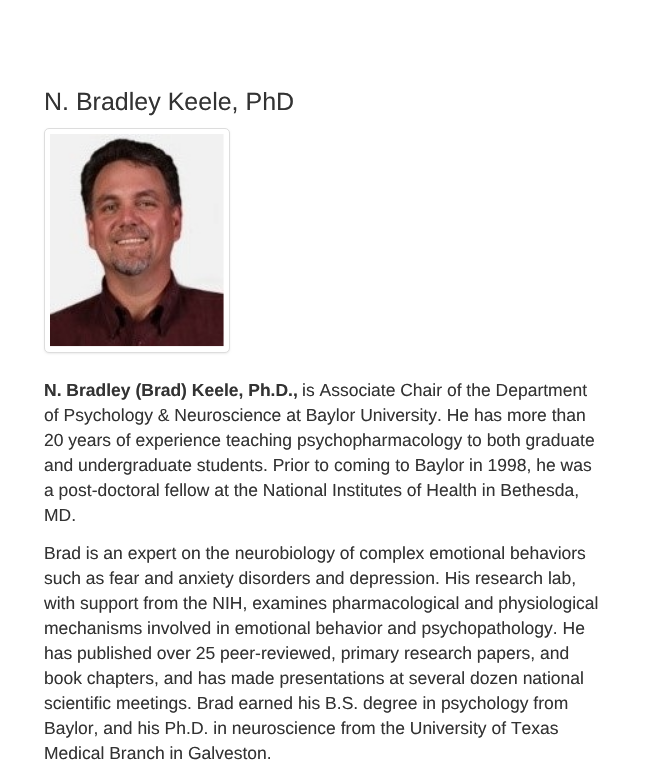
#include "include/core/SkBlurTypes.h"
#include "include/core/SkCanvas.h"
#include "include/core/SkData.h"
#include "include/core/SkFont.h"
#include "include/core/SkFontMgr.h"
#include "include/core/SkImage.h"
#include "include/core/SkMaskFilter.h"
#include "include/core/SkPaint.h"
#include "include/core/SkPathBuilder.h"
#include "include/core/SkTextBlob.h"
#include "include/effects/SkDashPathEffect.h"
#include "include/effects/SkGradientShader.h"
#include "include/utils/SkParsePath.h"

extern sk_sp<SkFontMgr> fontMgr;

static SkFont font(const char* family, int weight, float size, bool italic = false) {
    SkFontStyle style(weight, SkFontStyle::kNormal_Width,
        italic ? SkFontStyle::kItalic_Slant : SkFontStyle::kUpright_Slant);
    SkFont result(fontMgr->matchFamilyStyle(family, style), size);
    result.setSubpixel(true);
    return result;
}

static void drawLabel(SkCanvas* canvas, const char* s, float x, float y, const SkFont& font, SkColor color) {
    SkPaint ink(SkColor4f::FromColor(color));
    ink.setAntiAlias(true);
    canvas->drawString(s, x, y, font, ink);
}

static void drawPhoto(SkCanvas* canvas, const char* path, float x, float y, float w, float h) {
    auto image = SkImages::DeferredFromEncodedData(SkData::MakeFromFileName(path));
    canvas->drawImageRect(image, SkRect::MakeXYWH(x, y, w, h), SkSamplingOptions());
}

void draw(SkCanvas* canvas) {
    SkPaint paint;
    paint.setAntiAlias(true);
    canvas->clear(0xFFFFFFFF);
    SkFont font1 = font("Liberation Sans", 400, 25);
    drawLabel(canvas, "N. Bradley Keele, PhD", 44, 110, font1, 0xFF333333);
    paint.setColor(0x12000000);
    paint.setMaskFilter(SkMaskFilter::MakeBlur(kNormal_SkBlurStyle, 1));
    canvas->drawRoundRect(SkRect::MakeXYWH(44, 129, 186, 225), 5, 5, paint);
    paint.setMaskFilter(nullptr);
    paint.setColor(0xFFFFFFFF);
    canvas->drawRoundRect(SkRect::MakeXYWH(44.5f, 128.5f, 185, 224), 4.5f, 4.5f, paint);
    paint.setStroke(true);
    paint.setStrokeWidth(1);
    paint.setColor(0xFFDDDDDD);
    canvas->drawRoundRect(SkRect::MakeXYWH(44.5f, 128.5f, 185, 224), 4.5f, 4.5f, paint);
    drawPhoto(canvas, "assets/img1.png", 50, 134, 174, 213);
    SkFont font2 = font("Liberation Sans", 700, 17.5f);
    drawLabel(canvas, "N. Bradley (Brad) Keele, Ph.D.,", 44, 396, font2, 0xFF333333);
    SkFont font3 = font("Liberation Sans", 400, 17.5f);
    drawLabel(canvas, "is Associate Chair of the Department", 302, 396, font3, 0xFF333333);
    drawLabel(canvas, "of Psychology & Neuroscience at Baylor University. He has more than", 44, 421, font3, 0xFF333333);
    drawLabel(canvas, "20 years of experience teaching psychopharmacology to both graduate", 44, 446, font3, 0xFF333333);
    drawLabel(canvas, "and undergraduate students. Prior to coming to Baylor in 1998, he was", 44, 471, font3, 0xFF333333);
    drawLabel(canvas, "a post-doctoral fellow at the National Institutes of Health in Bethesda,", 44, 496, font3, 0xFF333333);
    drawLabel(canvas, "MD.", 44, 521, font3, 0xFF333333);
    drawLabel(canvas, "Brad is an expert on the neurobiology of complex emotional behaviors", 44, 559, font3, 0xFF333333);
    drawLabel(canvas, "such as fear and anxiety disorders and depression. His research lab,", 44, 584, font3, 0xFF333333);
    drawLabel(canvas, "with support from the NIH, examines pharmacological and physiological", 44, 609, font3, 0xFF333333);
    drawLabel(canvas, "mechanisms involved in emotional behavior and psychopathology. He", 44, 634, font3, 0xFF333333);
    drawLabel(canvas, "has published over 25 peer-reviewed, primary research papers, and", 44, 659, font3, 0xFF333333);
    drawLabel(canvas, "book chapters, and has made presentations at several dozen national", 44, 684, font3, 0xFF333333);
    drawLabel(canvas, "scientific meetings. Brad earned his B.S. degree in psychology from", 44, 709, font3, 0xFF333333);
    drawLabel(canvas, "Baylor, and his Ph.D. in neuroscience from the University of Texas", 44, 734, font3, 0xFF333333);
    drawLabel(canvas, "Medical Branch in Galveston.", 44, 759, font3, 0xFF333333);
}
